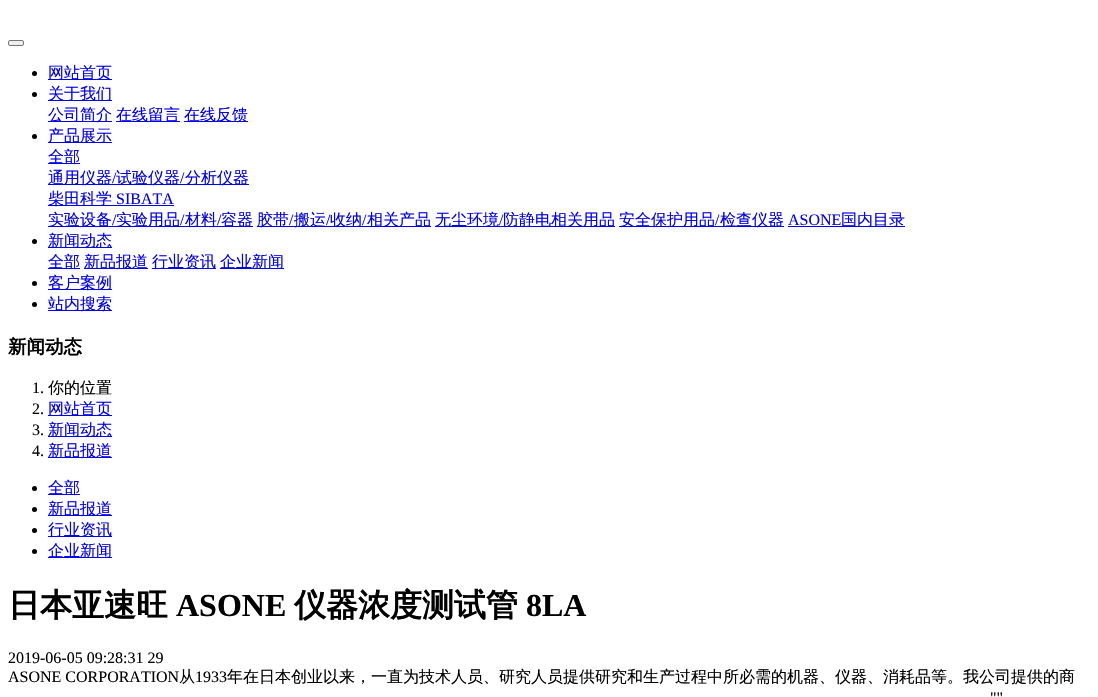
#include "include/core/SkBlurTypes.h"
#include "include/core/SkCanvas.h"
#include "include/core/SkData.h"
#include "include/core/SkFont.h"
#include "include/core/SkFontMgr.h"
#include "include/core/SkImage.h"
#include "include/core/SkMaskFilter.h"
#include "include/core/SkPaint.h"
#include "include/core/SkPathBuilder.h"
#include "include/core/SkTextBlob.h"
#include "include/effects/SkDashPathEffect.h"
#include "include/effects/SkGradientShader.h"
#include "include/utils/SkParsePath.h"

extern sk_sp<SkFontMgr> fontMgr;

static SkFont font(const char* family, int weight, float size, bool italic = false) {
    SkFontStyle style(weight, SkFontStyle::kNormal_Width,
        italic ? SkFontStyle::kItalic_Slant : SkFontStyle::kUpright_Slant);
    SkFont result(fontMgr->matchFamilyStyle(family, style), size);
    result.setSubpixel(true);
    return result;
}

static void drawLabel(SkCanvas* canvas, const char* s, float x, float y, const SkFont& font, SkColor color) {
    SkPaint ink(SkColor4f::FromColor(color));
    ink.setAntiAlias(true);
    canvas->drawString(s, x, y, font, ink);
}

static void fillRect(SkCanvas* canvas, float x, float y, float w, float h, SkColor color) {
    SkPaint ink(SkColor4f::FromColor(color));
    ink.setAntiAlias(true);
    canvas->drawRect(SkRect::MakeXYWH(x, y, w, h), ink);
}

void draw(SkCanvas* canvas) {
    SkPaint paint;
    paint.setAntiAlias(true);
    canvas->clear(0xFFFFFFFF);
    paint.setColor(0xFFEFEFEF);
    canvas->drawRoundRect(SkRect::MakeXYWH(8.5f, 40.5f, 15, 5), 1.5f, 1.5f, paint);
    paint.setStroke(true);
    paint.setStrokeWidth(1);
    paint.setColor(0xFF767676);
    canvas->drawRoundRect(SkRect::MakeXYWH(8.5f, 40.5f, 15, 5), 1.5f, 1.5f, paint);
    paint.setStroke(false);
    paint.setColor(0xFF000000);
    canvas->drawCircle(34.5f, 73.5f, 2.5f, paint);
    fillRect(canvas, 48, 79, 64, 1, 0xFF0000EE);
    SkFont font1 = font("WenQuanYi Zen Hei", 500, 16);
    drawLabel(canvas, "网站首页", 48, 78, font1, 0xFF0000EE);
    canvas->drawCircle(34.5f, 94.5f, 2.5f, paint);
    fillRect(canvas, 48, 100, 64, 1, 0xFF0000EE);
    drawLabel(canvas, "关于我们", 48, 99, font1, 0xFF0000EE);
    fillRect(canvas, 48, 121, 64, 1, 0xFF0000EE);
    drawLabel(canvas, "公司简介", 48, 120, font1, 0xFF0000EE);
    fillRect(canvas, 116, 121, 64, 1, 0xFF0000EE);
    drawLabel(canvas, "在线留言", 116, 120, font1, 0xFF0000EE);
    fillRect(canvas, 184, 121, 64, 1, 0xFF0000EE);
    drawLabel(canvas, "在线反馈", 184, 120, font1, 0xFF0000EE);
    canvas->drawCircle(34.5f, 136.5f, 2.5f, paint);
    fillRect(canvas, 48, 142, 64, 1, 0xFF0000EE);
    drawLabel(canvas, "产品展示", 48, 141, font1, 0xFF0000EE);
    fillRect(canvas, 48, 163, 32, 1, 0xFF0000EE);
    drawLabel(canvas, "全部", 48, 162, font1, 0xFF0000EE);
    fillRect(canvas, 48, 184, 201, 1, 0xFF0000EE);
    drawLabel(canvas, "通用仪器", 48, 183, font1, 0xFF0000EE);
    SkFont font2 = font("Liberation Serif", 400, 16);
    drawLabel(canvas, "/", 112, 183, font2, 0xFF0000EE);
    drawLabel(canvas, "试验仪器", 116, 183, font1, 0xFF0000EE);
    drawLabel(canvas, "/", 180, 183, font2, 0xFF0000EE);
    drawLabel(canvas, "分析仪器", 185, 183, font1, 0xFF0000EE);
    fillRect(canvas, 48, 205, 126, 1, 0xFF0000EE);
    drawLabel(canvas, "柴田科学", 48, 204, font1, 0xFF0000EE);
    drawLabel(canvas, "SIBATA", 116, 204, font2, 0xFF0000EE);
    fillRect(canvas, 48, 226, 205, 1, 0xFF0000EE);
    drawLabel(canvas, "实验设备", 48, 225, font1, 0xFF0000EE);
    drawLabel(canvas, "/", 112, 225, font2, 0xFF0000EE);
    drawLabel(canvas, "实验用品", 116, 225, font1, 0xFF0000EE);
    drawLabel(canvas, "/", 180, 225, font2, 0xFF0000EE);
    drawLabel(canvas, "材料", 185, 225, font1, 0xFF0000EE);
    drawLabel(canvas, "/", 217, 225, font2, 0xFF0000EE);
    drawLabel(canvas, "容器", 221, 225, font1, 0xFF0000EE);
    fillRect(canvas, 257, 226, 174, 1, 0xFF0000EE);
    drawLabel(canvas, "胶带", 257, 225, font1, 0xFF0000EE);
    drawLabel(canvas, "/", 289, 225, font2, 0xFF0000EE);
    drawLabel(canvas, "搬运", 294, 225, font1, 0xFF0000EE);
    drawLabel(canvas, "/", 326, 225, font2, 0xFF0000EE);
    drawLabel(canvas, "收纳", 330, 225, font1, 0xFF0000EE);
    drawLabel(canvas, "/", 362, 225, font2, 0xFF0000EE);
    drawLabel(canvas, "相关产品", 367, 225, font1, 0xFF0000EE);
    fillRect(canvas, 435, 226, 180, 1, 0xFF0000EE);
    drawLabel(canvas, "无尘环境", 435, 225, font1, 0xFF0000EE);
    drawLabel(canvas, "/", 499, 225, font2, 0xFF0000EE);
    drawLabel(canvas, "防静电相关用品", 503, 225, font1, 0xFF0000EE);
    fillRect(canvas, 619, 226, 165, 1, 0xFF0000EE);
    drawLabel(canvas, "安全保护用品", 619, 225, font1, 0xFF0000EE);
    drawLabel(canvas, "/", 715, 225, font2, 0xFF0000EE);
    drawLabel(canvas, "检查仪器", 720, 225, font1, 0xFF0000EE);
    drawLabel(canvas, "ASONE", 788, 225, font2, 0xFF0000EE);
    fillRect(canvas, 788, 226, 117, 1, 0xFF0000EE);
    drawLabel(canvas, "国内目录", 841, 225, font1, 0xFF0000EE);
    canvas->drawCircle(34.5f, 241.5f, 2.5f, paint);
    fillRect(canvas, 48, 247, 64, 1, 0xFF0000EE);
    drawLabel(canvas, "新闻动态", 48, 246, font1, 0xFF0000EE);
    fillRect(canvas, 48, 268, 32, 1, 0xFF0000EE);
    drawLabel(canvas, "全部", 48, 267, font1, 0xFF0000EE);
    fillRect(canvas, 84, 268, 64, 1, 0xFF0000EE);
    drawLabel(canvas, "新品报道", 84, 267, font1, 0xFF0000EE);
    fillRect(canvas, 152, 268, 64, 1, 0xFF0000EE);
    drawLabel(canvas, "行业资讯", 152, 267, font1, 0xFF0000EE);
    fillRect(canvas, 220, 268, 64, 1, 0xFF0000EE);
    drawLabel(canvas, "企业新闻", 220, 267, font1, 0xFF0000EE);
    canvas->drawCircle(34.5f, 283.5f, 2.5f, paint);
    fillRect(canvas, 48, 289, 64, 1, 0xFF0000EE);
    drawLabel(canvas, "客户案例", 48, 288, font1, 0xFF0000EE);
    canvas->drawCircle(34.5f, 304.5f, 2.5f, paint);
    fillRect(canvas, 48, 310, 64, 1, 0xFF0000EE);
    drawLabel(canvas, "站内搜索", 48, 309, font1, 0xFF0000EE);
    SkFont font3 = font("WenQuanYi Zen Hei", 700, 18.5f);
    drawLabel(canvas, "新闻动态", 8, 353, font3, 0xFF000000);
    drawLabel(canvas, "1.", 32, 393, font2, 0xFF000000);
    drawLabel(canvas, "你的位置", 48, 393, font1, 0xFF000000);
    drawLabel(canvas, "2.", 32, 414, font2, 0xFF000000);
    fillRect(canvas, 48, 415, 64, 1, 0xFF0000EE);
    drawLabel(canvas, "网站首页", 48, 414, font1, 0xFF0000EE);
    drawLabel(canvas, "3.", 32, 435, font2, 0xFF000000);
    fillRect(canvas, 48, 436, 64, 1, 0xFF0000EE);
    drawLabel(canvas, "新闻动态", 48, 435, font1, 0xFF0000EE);
    drawLabel(canvas, "4.", 32, 456, font2, 0xFF000000);
    fillRect(canvas, 48, 457, 64, 1, 0xFF0000EE);
    drawLabel(canvas, "新品报道", 48, 456, font1, 0xFF0000EE);
    canvas->drawCircle(34.5f, 488.5f, 2.5f, paint);
    fillRect(canvas, 48, 494, 32, 1, 0xFF0000EE);
    drawLabel(canvas, "全部", 48, 493, font1, 0xFF0000EE);
    canvas->drawCircle(34.5f, 509.5f, 2.5f, paint);
    fillRect(canvas, 48, 515, 64, 1, 0xFF0000EE);
    drawLabel(canvas, "新品报道", 48, 514, font1, 0xFF0000EE);
    canvas->drawCircle(34.5f, 530.5f, 2.5f, paint);
    fillRect(canvas, 48, 536, 64, 1, 0xFF0000EE);
    drawLabel(canvas, "行业资讯", 48, 535, font1, 0xFF0000EE);
    canvas->drawCircle(34.5f, 551.5f, 2.5f, paint);
    fillRect(canvas, 48, 557, 64, 1, 0xFF0000EE);
    drawLabel(canvas, "企业新闻", 48, 556, font1, 0xFF0000EE);
    SkFont font4 = font("WenQuanYi Zen Hei", 700, 32);
    drawLabel(canvas, "日本亚速旺", 8, 616, font4, 0xFF000000);
    SkFont font5 = font("Liberation Serif", 700, 32);
    drawLabel(canvas, "ASONE", 176, 616, font5, 0xFF000000);
    drawLabel(canvas, "仪器浓度测试管", 294, 616, font4, 0xFF000000);
    drawLabel(canvas, "8LA", 526, 616, font5, 0xFF000000);
    drawLabel(canvas, "2019-06-05 09:28:31 29", 8, 663, font2, 0xFF000000);
    drawLabel(canvas, "ASONE CORPORATION", 8, 682, font2, 0xFF000000);
    drawLabel(canvas, "从", 179, 682, font1, 0xFF000000);
    drawLabel(canvas, "1933", 195, 682, font2, 0xFF000000);
    drawLabel(canvas, "年在日本创业以来，一直为技术人员、研究人员提供研究和生产过程中所必需的机器、仪器、消耗品等。我公司提供的商", 227, 682, font1, 0xFF000000);
    drawLabel(canvas, "\"\"", 990, 703, font2, 0xFF000000);
}
